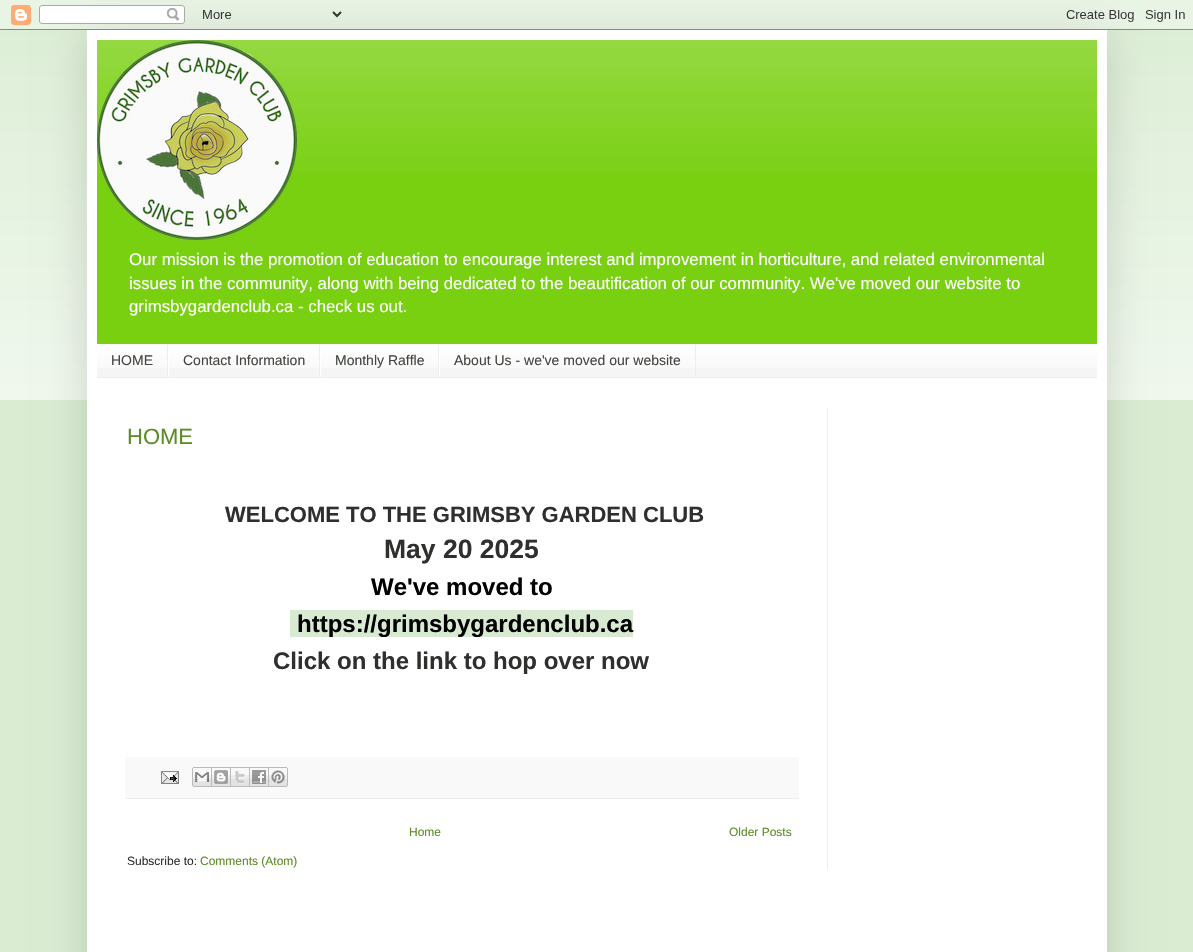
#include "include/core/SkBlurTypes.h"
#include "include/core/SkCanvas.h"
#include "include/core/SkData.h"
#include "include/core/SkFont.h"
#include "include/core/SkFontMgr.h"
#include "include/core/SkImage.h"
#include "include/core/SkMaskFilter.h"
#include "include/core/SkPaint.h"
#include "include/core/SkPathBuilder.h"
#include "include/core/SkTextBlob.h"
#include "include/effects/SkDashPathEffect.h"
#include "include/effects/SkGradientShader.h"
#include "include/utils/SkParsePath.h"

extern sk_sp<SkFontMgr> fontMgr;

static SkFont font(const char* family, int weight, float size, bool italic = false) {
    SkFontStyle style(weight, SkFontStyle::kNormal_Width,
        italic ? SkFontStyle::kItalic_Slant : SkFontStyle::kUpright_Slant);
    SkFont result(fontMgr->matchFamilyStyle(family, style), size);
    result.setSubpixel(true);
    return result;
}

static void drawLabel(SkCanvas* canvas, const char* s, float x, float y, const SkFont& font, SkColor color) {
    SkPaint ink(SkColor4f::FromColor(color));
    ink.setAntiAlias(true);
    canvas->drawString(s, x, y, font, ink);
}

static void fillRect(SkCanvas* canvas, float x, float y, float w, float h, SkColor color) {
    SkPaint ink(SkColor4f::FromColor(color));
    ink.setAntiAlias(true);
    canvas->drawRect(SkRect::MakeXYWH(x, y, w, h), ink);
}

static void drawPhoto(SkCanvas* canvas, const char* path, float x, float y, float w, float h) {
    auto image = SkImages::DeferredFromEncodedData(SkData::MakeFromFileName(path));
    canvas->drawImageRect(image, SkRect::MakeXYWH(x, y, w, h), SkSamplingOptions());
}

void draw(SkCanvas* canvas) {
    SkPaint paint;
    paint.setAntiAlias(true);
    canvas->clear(0xFFDAEDD3);
    drawPhoto(canvas, "assets/img2.png", 0, 30, 1193, 370);
    paint.setColor(0x26000000);
    paint.setMaskFilter(SkMaskFilter::MakeBlur(kNormal_SkBlurStyle, 20));
    canvas->drawRect(SkRect::MakeXYWH(87, 30, 1020, 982), paint);
    paint.setMaskFilter(nullptr);
    drawPhoto(canvas, "assets/img1.png", 0, 0, 1193, 30);
    fillRect(canvas, 87, 30, 1020, 922, 0xFFFFFFFF);
    fillRect(canvas, 97, 40, 1000, 304, 0xFF79D011);
    drawPhoto(canvas, "assets/img3.png", 97, 40, 1000, 133);
    drawPhoto(canvas, "assets/img4.png", 97, 40, 200, 200);
    SkFont font1 = font("Liberation Sans", 400, 16.8f);
    drawLabel(canvas, "Our mission is the promotion of education to encourage interest and improvement in horticulture, and related environmental", 129, 265, font1, 0xFFFFFFFF);
    drawLabel(canvas, "issues in the community, along with being dedicated to the beautification of our community. We've moved our website to", 129, 289, font1, 0xFFFFFFFF);
    drawLabel(canvas, "grimsbygardenclub.ca - check us out.", 129, 312, font1, 0xFFFFFFFF);
    fillRect(canvas, 97, 345, 1000, 32, 0xFFF5F5F5);
    drawPhoto(canvas, "assets/img5.png", 97, 344, 1000, 24);
    fillRect(canvas, 97, 377, 1000, 1, 0xFFEEEEEE);
    fillRect(canvas, 167, 344, 1, 33, 0xFFEEEEEE);
    SkFont font2 = font("Liberation Sans", 400, 14);
    drawLabel(canvas, "HOME", 111, 365, font2, 0xFF424640);
    fillRect(canvas, 319, 344, 1, 33, 0xFFEEEEEE);
    fillRect(canvas, 168, 355, 1, 22, 0xFFFFFFFF);
    drawLabel(canvas, "Contact Information", 183, 365, font2, 0xFF424640);
    fillRect(canvas, 438, 344, 1, 33, 0xFFEEEEEE);
    fillRect(canvas, 320, 355, 1, 22, 0xFFFFFFFF);
    drawLabel(canvas, "Monthly Raffle", 335, 365, font2, 0xFF424640);
    fillRect(canvas, 695, 344, 1, 33, 0xFFEEEEEE);
    fillRect(canvas, 439, 355, 1, 22, 0xFFFFFFFF);
    drawLabel(canvas, "About Us - we've moved our website", 454, 365, font2, 0xFF424640);
    SkFont font3 = font("Liberation Sans", 400, 22);
    drawLabel(canvas, "HOME", 127, 444, font3, 0xFF5C8C26);
    SkFont font4 = font("Liberation Sans", 700, 22);
    drawLabel(canvas, "WELCOME TO THE GRIMSBY GARDEN CLUB", 225, 522, font4, 0xFF2F302E);
    SkFont font5 = font("Liberation Sans", 700, 26.5f);
    drawLabel(canvas, "May 20 2025", 384, 558, font5, 0xFF2F302E);
    SkFont font6 = font("Liberation Sans", 700, 24);
    drawLabel(canvas, "We've moved to", 371, 595, font6, 0xFF000000);
    fillRect(canvas, 290, 610, 343, 27, 0xFFD9EAD3);
    drawLabel(canvas, "https://grimsbygardenclub.ca", 297, 632, font6, 0xFF000000);
    drawLabel(canvas, "Click on the link to hop over now", 273, 669, font6, 0xFF2F302E);
    fillRect(canvas, 125, 757, 674, 41, 0xFFF9F9F9);
    fillRect(canvas, 125, 798, 674, 1, 0xFFEEEEEE);
    drawPhoto(canvas, "assets/img6.png", 161, 771, 18, 13);
    drawPhoto(canvas, "assets/img7.png", 192, 767, 20, 20);
    drawPhoto(canvas, "assets/img8.png", 212, 767, 19, 20);
    drawPhoto(canvas, "assets/img9.png", 231, 767, 19, 20);
    drawPhoto(canvas, "assets/img10.png", 250, 767, 19, 20);
    drawPhoto(canvas, "assets/img11.png", 269, 767, 19, 20);
    SkFont font7 = font("Liberation Sans", 400, 12);
    drawLabel(canvas, "Home", 409, 836, font7, 0xFF5C8C26);
    drawLabel(canvas, "Older Posts", 729, 836, font7, 0xFF5C8C26);
    drawLabel(canvas, "Subscribe to:", 127, 865, font7, 0xFF2F302E);
    drawLabel(canvas, "Comments (Atom)", 200, 865, font7, 0xFF5C8C26);
    fillRect(canvas, 827, 408, 1, 461, 0xFFEEEEEE);
}
